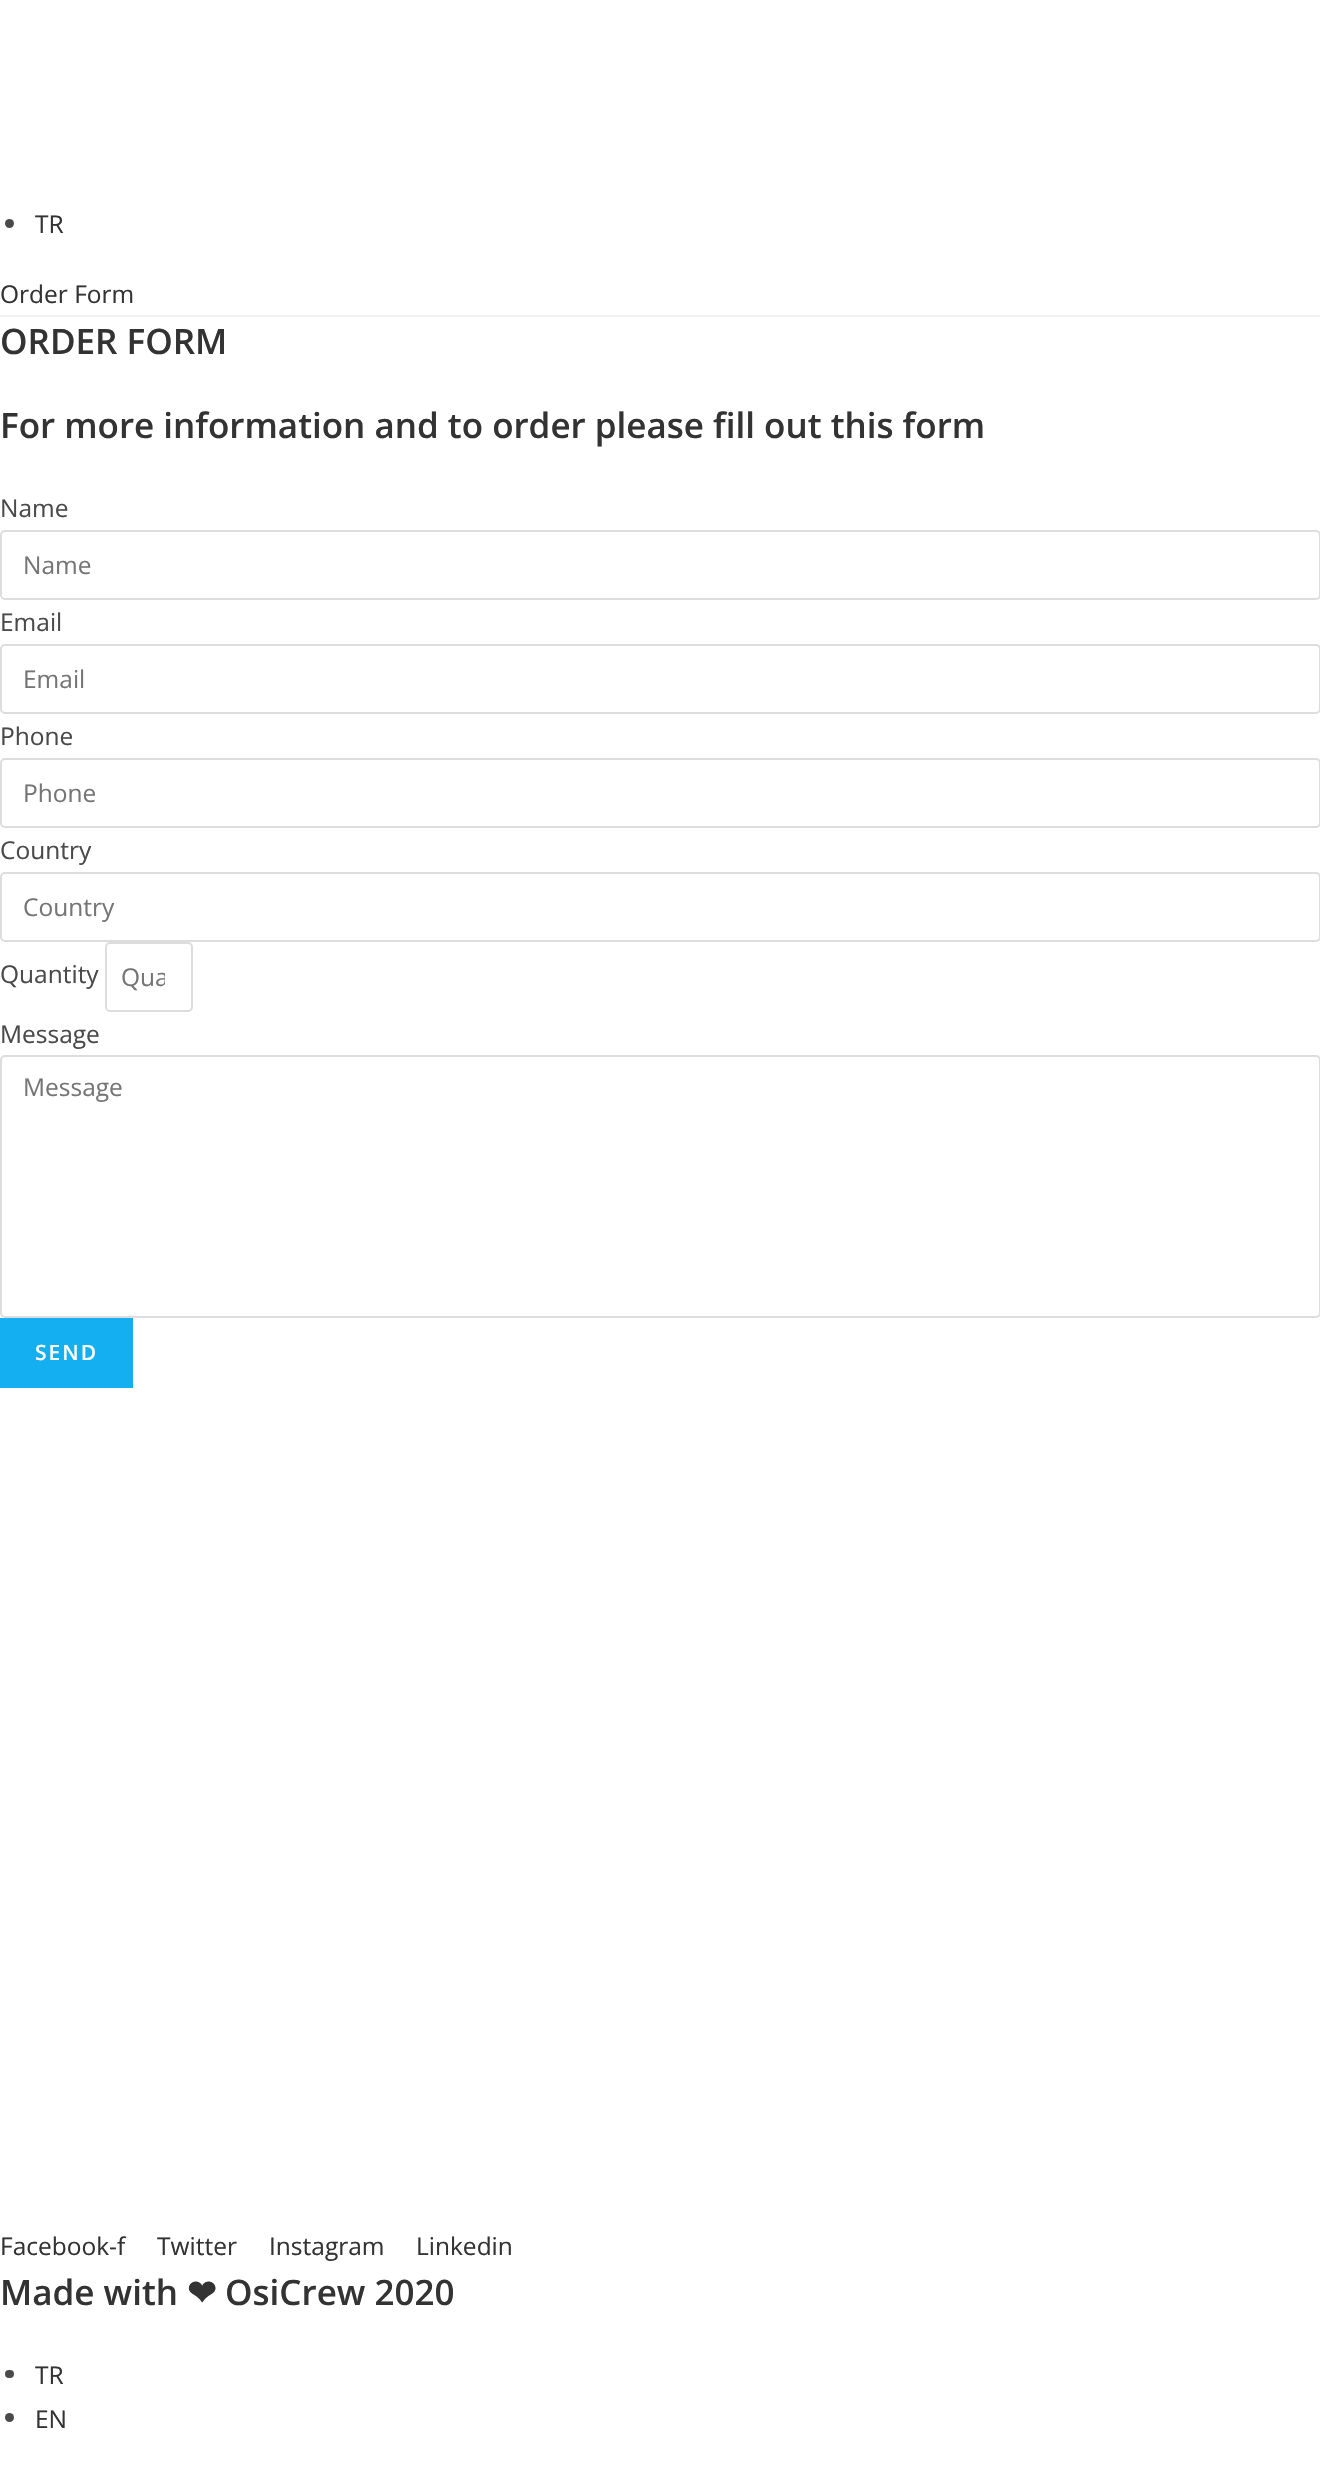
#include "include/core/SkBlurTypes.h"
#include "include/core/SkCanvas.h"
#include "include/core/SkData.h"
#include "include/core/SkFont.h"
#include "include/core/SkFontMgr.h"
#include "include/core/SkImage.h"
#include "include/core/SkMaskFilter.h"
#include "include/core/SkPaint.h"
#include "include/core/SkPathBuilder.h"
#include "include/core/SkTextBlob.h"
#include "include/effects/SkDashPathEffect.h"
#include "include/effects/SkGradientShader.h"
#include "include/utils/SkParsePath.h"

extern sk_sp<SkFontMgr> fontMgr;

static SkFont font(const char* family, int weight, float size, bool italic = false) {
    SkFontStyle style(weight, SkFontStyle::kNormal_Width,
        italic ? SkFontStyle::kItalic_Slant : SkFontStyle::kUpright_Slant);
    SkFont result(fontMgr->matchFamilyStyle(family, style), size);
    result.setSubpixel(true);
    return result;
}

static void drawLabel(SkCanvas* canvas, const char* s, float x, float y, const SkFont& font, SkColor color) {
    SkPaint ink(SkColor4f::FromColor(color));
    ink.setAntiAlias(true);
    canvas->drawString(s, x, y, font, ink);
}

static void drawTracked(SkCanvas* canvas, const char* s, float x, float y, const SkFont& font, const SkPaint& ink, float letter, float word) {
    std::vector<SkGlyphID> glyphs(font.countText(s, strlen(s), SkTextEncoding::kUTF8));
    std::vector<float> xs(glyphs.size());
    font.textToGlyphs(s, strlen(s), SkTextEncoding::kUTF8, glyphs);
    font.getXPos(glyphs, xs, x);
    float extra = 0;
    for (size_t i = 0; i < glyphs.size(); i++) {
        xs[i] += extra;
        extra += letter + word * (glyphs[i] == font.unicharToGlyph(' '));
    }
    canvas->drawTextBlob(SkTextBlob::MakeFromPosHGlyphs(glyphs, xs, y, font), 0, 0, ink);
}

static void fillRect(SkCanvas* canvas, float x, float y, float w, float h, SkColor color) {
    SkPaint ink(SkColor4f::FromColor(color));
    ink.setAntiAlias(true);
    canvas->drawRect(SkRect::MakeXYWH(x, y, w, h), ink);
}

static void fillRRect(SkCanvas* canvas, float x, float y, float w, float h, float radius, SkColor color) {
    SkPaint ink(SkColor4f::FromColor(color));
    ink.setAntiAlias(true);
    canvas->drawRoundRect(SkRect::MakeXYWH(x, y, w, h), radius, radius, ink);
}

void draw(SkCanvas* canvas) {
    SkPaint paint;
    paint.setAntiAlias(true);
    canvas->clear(0xFFFFFFFF);
    fillRect(canvas, 0, 315, 1320, 2, 0xFFF1F1F1);
    paint.setColor(0xFF4A4A4A);
    canvas->drawCircle(9.5f, 223.5f, 4.5f, paint);
    SkFont font1 = font("Open Sans", 400, 24.5f);
    drawLabel(canvas, "TR", 35, 233, font1, 0xFF333333);
    drawLabel(canvas, "Order Form", 0, 303, font1, 0xFF333333);
    SkFont font2 = font("Open Sans", 600, 35);
    drawLabel(canvas, "ORDER FORM", 0, 354, font2, 0xFF333333);
    drawLabel(canvas, "For more information and to order please fill out this form", 0, 438, font2, 0xFF333333);
    drawLabel(canvas, "Name", 0, 517, font1, 0xFF4A4A4A);
    paint.setStroke(true);
    paint.setStrokeWidth(2);
    paint.setColor(0xFFDDDDDD);
    canvas->drawRoundRect(SkRect::MakeXYWH(1, 531, 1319, 68), 4, 4, paint);
    drawLabel(canvas, "Name", 23, 574, font1, 0xFF757575);
    drawLabel(canvas, "Email", 0, 631, font1, 0xFF4A4A4A);
    canvas->drawRoundRect(SkRect::MakeXYWH(1, 645, 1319, 68), 4, 4, paint);
    drawLabel(canvas, "Email", 23, 688, font1, 0xFF757575);
    drawLabel(canvas, "Phone", 0, 745, font1, 0xFF4A4A4A);
    canvas->drawRoundRect(SkRect::MakeXYWH(1, 759, 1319, 68), 4, 4, paint);
    drawLabel(canvas, "Phone", 23, 802, font1, 0xFF757575);
    drawLabel(canvas, "Country", 0, 859, font1, 0xFF4A4A4A);
    canvas->drawRoundRect(SkRect::MakeXYWH(1, 873, 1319, 68), 4, 4, paint);
    drawLabel(canvas, "Country", 23, 916, font1, 0xFF757575);
    drawLabel(canvas, "Quantity", 0, 983, font1, 0xFF4A4A4A);
    canvas->drawRoundRect(SkRect::MakeXYWH(106, 943, 86, 68), 4, 4, paint);
    canvas->save();
    canvas->clipRect(SkRect::MakeXYWH(121, 961, 44, 33));
    drawLabel(canvas, "Qua", 121, 986, font1, 0xFF757575);
    canvas->restore();
    drawLabel(canvas, "Message", 0, 1043, font1, 0xFF4A4A4A);
    canvas->drawRoundRect(SkRect::MakeXYWH(1, 1056, 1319, 261), 4, 4, paint);
    drawLabel(canvas, "Message", 23, 1096, font1, 0xFF757575);
    fillRect(canvas, 0, 1318, 133, 70, 0xFF13AFF0);
    SkFont font3 = font("Open Sans", 600, 21);
    paint.setStroke(false);
    paint.setColor(0xFFFFFFFF);
    drawTracked(canvas, "SEND", 35, 1360, font3, paint, 2, 0);
    drawLabel(canvas, "Facebook-f", 0, 2255, font1, 0xFF333333);
    drawLabel(canvas, "Twitter", 157, 2255, font1, 0xFF333333);
    drawLabel(canvas, "Instagram", 269, 2255, font1, 0xFF333333);
    drawLabel(canvas, "Linkedin", 416, 2255, font1, 0xFF333333);
    drawLabel(canvas, "Made with", 0, 2305, font2, 0xFF333333);
    SkFont font4 = font("DejaVu Sans", 700, 35);
    drawLabel(canvas, "❤", 187, 2305, font4, 0xFF333333);
    drawLabel(canvas, "OsiCrew 2020", 225, 2305, font2, 0xFF333333);
    fillRRect(canvas, 5, 2370, 9, 8, 4, 0xFF4A4A4A);
    drawLabel(canvas, "TR", 35, 2384, font1, 0xFF333333);
    paint.setColor(0xFF4A4A4A);
    canvas->drawCircle(9.5f, 2417.5f, 4.5f, paint);
    drawLabel(canvas, "EN", 35, 2428, font1, 0xFF333333);
}
